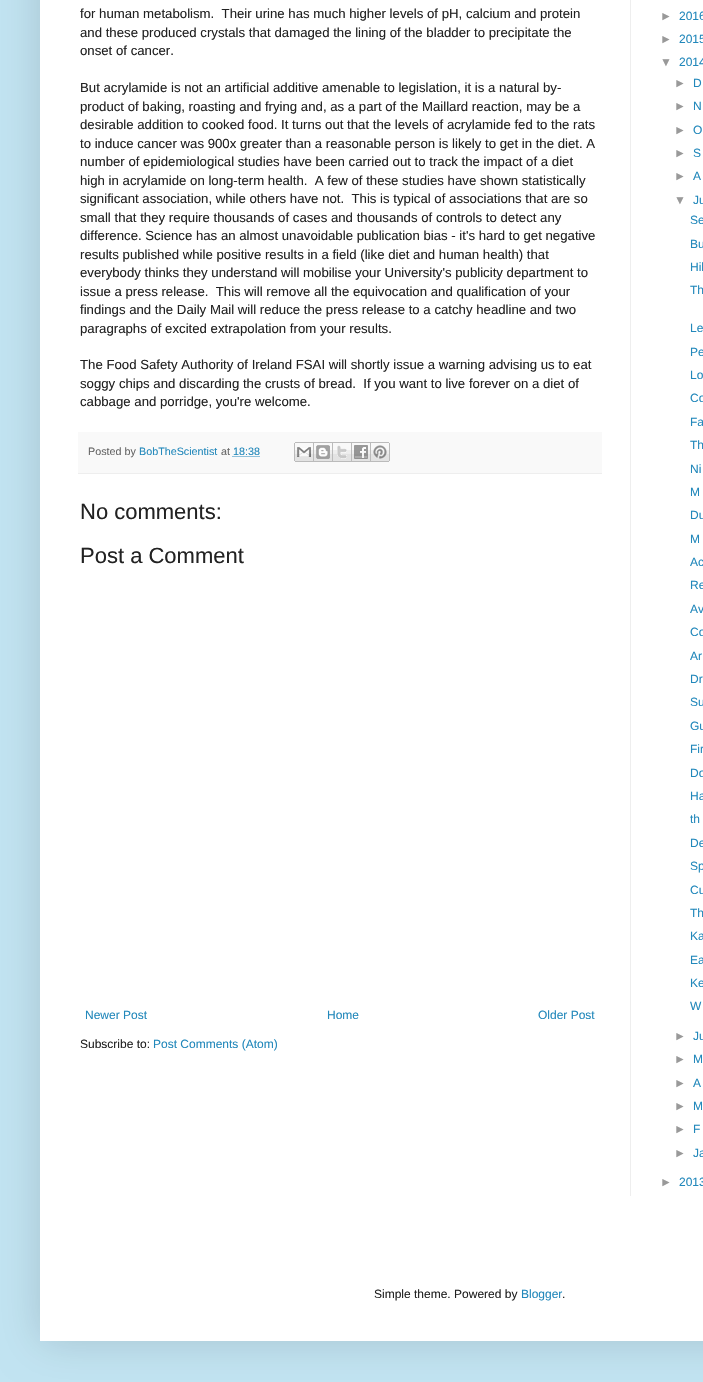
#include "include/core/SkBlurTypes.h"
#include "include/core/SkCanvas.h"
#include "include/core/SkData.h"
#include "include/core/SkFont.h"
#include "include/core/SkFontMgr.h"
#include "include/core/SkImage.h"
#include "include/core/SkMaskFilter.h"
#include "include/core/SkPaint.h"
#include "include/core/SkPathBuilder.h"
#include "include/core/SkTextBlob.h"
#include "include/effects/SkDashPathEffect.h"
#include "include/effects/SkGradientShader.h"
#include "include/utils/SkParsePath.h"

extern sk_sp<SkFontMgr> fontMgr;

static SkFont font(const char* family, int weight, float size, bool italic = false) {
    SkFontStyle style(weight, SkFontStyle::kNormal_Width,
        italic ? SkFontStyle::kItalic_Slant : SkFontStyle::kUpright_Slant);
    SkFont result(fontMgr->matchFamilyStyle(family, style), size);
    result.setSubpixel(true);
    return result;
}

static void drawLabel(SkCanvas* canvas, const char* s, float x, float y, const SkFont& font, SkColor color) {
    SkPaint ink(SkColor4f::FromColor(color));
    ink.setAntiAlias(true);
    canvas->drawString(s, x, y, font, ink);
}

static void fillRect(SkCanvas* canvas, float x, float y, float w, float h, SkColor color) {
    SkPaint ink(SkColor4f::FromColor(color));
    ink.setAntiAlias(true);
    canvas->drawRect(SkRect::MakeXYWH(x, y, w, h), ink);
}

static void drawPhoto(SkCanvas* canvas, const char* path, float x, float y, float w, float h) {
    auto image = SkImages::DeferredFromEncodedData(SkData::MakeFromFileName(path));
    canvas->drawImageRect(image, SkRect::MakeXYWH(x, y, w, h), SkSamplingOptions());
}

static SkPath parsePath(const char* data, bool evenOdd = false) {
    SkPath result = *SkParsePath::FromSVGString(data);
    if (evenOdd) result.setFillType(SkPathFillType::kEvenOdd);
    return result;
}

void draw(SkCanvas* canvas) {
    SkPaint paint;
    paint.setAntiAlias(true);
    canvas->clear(0xFFC2E4F2);
    paint.setColor(0x26000000);
    paint.setMaskFilter(SkMaskFilter::MakeBlur(kNormal_SkBlurStyle, 20));
    canvas->drawRect(SkRect::MakeXYWH(40, -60, 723, 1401), paint);
    paint.setMaskFilter(nullptr);
    fillRect(canvas, 40, 0, 663, 1341, 0xFFFFFFFF);
    fillRect(canvas, 630, 0, 1, 1196, 0xFFEEEEEE);
    SkFont font1 = font("Liberation Sans", 400, 13.2f);
    drawLabel(canvas, "for human metabolism.  Their urine has much higher levels of pH, calcium and protein", 80, 18, font1, 0xFF222222);
    drawLabel(canvas, "and these produced crystals that damaged the lining of the bladder to precipitate the", 80, 37, font1, 0xFF222222);
    drawLabel(canvas, "onset of cancer.", 80, 55, font1, 0xFF222222);
    drawLabel(canvas, "But acrylamide is not an artificial additive amenable to legislation, it is a natural by-", 80, 92, font1, 0xFF222222);
    drawLabel(canvas, "product of baking, roasting and frying and, as a part of the Maillard reaction, may be a", 80, 111, font1, 0xFF222222);
    drawLabel(canvas, "desirable addition to cooked food. It turns out that the levels of acrylamide fed to the rats", 80, 129, font1, 0xFF222222);
    drawLabel(canvas, "to induce cancer was 900x greater than a reasonable person is likely to get in the diet. A", 80, 148, font1, 0xFF222222);
    drawLabel(canvas, "number of epidemiological studies have been carried out to track the impact of a diet", 80, 166, font1, 0xFF222222);
    drawLabel(canvas, "high in acrylamide on long-term health.  A few of these studies have shown statistically", 80, 185, font1, 0xFF222222);
    drawLabel(canvas, "significant association, while others have not.  This is typical of associations that are so", 80, 203, font1, 0xFF222222);
    drawLabel(canvas, "small that they require thousands of cases and thousands of controls to detect any", 80, 222, font1, 0xFF222222);
    drawLabel(canvas, "difference. Science has an almost unavoidable publication bias - it's hard to get negative", 80, 240, font1, 0xFF222222);
    drawLabel(canvas, "results published while positive results in a field (like diet and human health) that", 80, 259, font1, 0xFF222222);
    drawLabel(canvas, "everybody thinks they understand will mobilise your University's publicity department to", 80, 277, font1, 0xFF222222);
    drawLabel(canvas, "issue a press release.  This will remove all the equivocation and qualification of your", 80, 296, font1, 0xFF222222);
    drawLabel(canvas, "findings and the Daily Mail will reduce the press release to a catchy headline and two", 80, 314, font1, 0xFF222222);
    drawLabel(canvas, "paragraphs of excited extrapolation from your results.", 80, 333, font1, 0xFF222222);
    drawLabel(canvas, "The Food Safety Authority of Ireland FSAI will shortly issue a warning advising us to eat", 80, 369, font1, 0xFF222222);
    drawLabel(canvas, "soggy chips and discarding the crusts of bread.  If you want to live forever on a diet of", 80, 388, font1, 0xFF222222);
    drawLabel(canvas, "cabbage and porridge, you're welcome.", 80, 406, font1, 0xFF222222);
    fillRect(canvas, 78, 432, 524, 41, 0xFFF9F9F9);
    fillRect(canvas, 78, 473, 524, 1, 0xFFEEEEEE);
    SkFont font2 = font("Liberation Sans", 400, 10.75f);
    drawLabel(canvas, "Posted by", 88, 455, font2, 0xFF666666);
    drawLabel(canvas, "BobTheScientist", 139, 455, font2, 0xFF2288BB);
    drawLabel(canvas, "at", 221, 455, font2, 0xFF666666);
    drawLabel(canvas, "18:38", 233, 455, font2, 0xFF2288BB);
    paint.setStroke(true);
    paint.setStrokeWidth(1);
    paint.setColor(0xFF2288BB);
    paint.setPathEffect(SkDashPathEffect::Make({{1, 1}}, 0));
    canvas->drawPath(parsePath("M232.5 456.5H259.5"), paint);
    paint.setPathEffect(nullptr);
    drawPhoto(canvas, "assets/img1.png", 294, 442, 20, 20);
    drawPhoto(canvas, "assets/img2.png", 314, 442, 19, 20);
    drawPhoto(canvas, "assets/img3.png", 333, 442, 19, 20);
    drawPhoto(canvas, "assets/img4.png", 352, 442, 19, 20);
    drawPhoto(canvas, "assets/img5.png", 371, 442, 19, 20);
    SkFont font3 = font("Liberation Sans", 400, 22);
    drawLabel(canvas, "No comments:", 80, 519, font3, 0xFF222222);
    drawLabel(canvas, "Post a Comment", 80, 563, font3, 0xFF222222);
    SkFont font4 = font("Liberation Sans", 400, 12);
    drawLabel(canvas, "Newer Post", 85, 1019, font4, 0xFF2288BB);
    drawLabel(canvas, "Home", 327, 1019, font4, 0xFF2288BB);
    drawLabel(canvas, "Older Post", 538, 1019, font4, 0xFF2288BB);
    drawLabel(canvas, "Subscribe to:", 80, 1048, font4, 0xFF222222);
    drawLabel(canvas, "Post Comments (Atom)", 153, 1048, font4, 0xFF2288BB);
    drawLabel(canvas, "►", 660, 20, font4, 0xFF999999);
    drawLabel(canvas, "2016", 679, 20, font4, 0xFF2288BB);
    drawLabel(canvas, "►", 660, 43, font4, 0xFF999999);
    drawLabel(canvas, "2015", 679, 43, font4, 0xFF2288BB);
    drawLabel(canvas, "▼", 660, 66, font4, 0xFF999999);
    drawLabel(canvas, "2014", 679, 66, font4, 0xFF2288BB);
    drawLabel(canvas, "►", 674, 87, font4, 0xFF999999);
    drawLabel(canvas, "D", 693, 87, font4, 0xFF2288BB);
    drawLabel(canvas, "►", 674, 110, font4, 0xFF999999);
    drawLabel(canvas, "N", 693, 110, font4, 0xFF2288BB);
    drawLabel(canvas, "►", 674, 134, font4, 0xFF999999);
    drawLabel(canvas, "O", 693, 134, font4, 0xFF2288BB);
    drawLabel(canvas, "►", 674, 157, font4, 0xFF999999);
    drawLabel(canvas, "S", 693, 157, font4, 0xFF2288BB);
    drawLabel(canvas, "►", 674, 180, font4, 0xFF999999);
    drawLabel(canvas, "A", 693, 180, font4, 0xFF2288BB);
    drawLabel(canvas, "▼", 674, 204, font4, 0xFF999999);
    drawLabel(canvas, "Ju", 693, 204, font4, 0xFF2288BB);
    drawLabel(canvas, "Se", 690, 224, font4, 0xFF2288BB);
    drawLabel(canvas, "Bu", 690, 248, font4, 0xFF2288BB);
    drawLabel(canvas, "Hil", 690, 271, font4, 0xFF2288BB);
    drawLabel(canvas, "Th", 690, 294, font4, 0xFF2288BB);
    drawLabel(canvas, "Le", 690, 332, font4, 0xFF2288BB);
    drawLabel(canvas, "Pe", 690, 356, font4, 0xFF2288BB);
    drawLabel(canvas, "Lo", 690, 379, font4, 0xFF2288BB);
    drawLabel(canvas, "Co", 690, 402, font4, 0xFF2288BB);
    drawLabel(canvas, "Fa", 690, 426, font4, 0xFF2288BB);
    drawLabel(canvas, "Th", 690, 449, font4, 0xFF2288BB);
    drawLabel(canvas, "Ni", 690, 473, font4, 0xFF2288BB);
    drawLabel(canvas, "M", 690, 496, font4, 0xFF2288BB);
    drawLabel(canvas, "Du", 690, 519, font4, 0xFF2288BB);
    drawLabel(canvas, "M", 690, 543, font4, 0xFF2288BB);
    drawLabel(canvas, "Ac", 690, 566, font4, 0xFF2288BB);
    drawLabel(canvas, "Re", 690, 589, font4, 0xFF2288BB);
    drawLabel(canvas, "Av", 690, 613, font4, 0xFF2288BB);
    drawLabel(canvas, "Co", 690, 636, font4, 0xFF2288BB);
    drawLabel(canvas, "Ar", 690, 660, font4, 0xFF2288BB);
    drawLabel(canvas, "Dr", 690, 683, font4, 0xFF2288BB);
    drawLabel(canvas, "Su", 690, 706, font4, 0xFF2288BB);
    drawLabel(canvas, "Gu", 690, 730, font4, 0xFF2288BB);
    drawLabel(canvas, "Fir", 690, 753, font4, 0xFF2288BB);
    drawLabel(canvas, "Do", 690, 777, font4, 0xFF2288BB);
    drawLabel(canvas, "Ha", 690, 800, font4, 0xFF2288BB);
    drawLabel(canvas, "th", 690, 823, font4, 0xFF2288BB);
    drawLabel(canvas, "De", 690, 847, font4, 0xFF2288BB);
    drawLabel(canvas, "Sp", 690, 870, font4, 0xFF2288BB);
    drawLabel(canvas, "Cu", 690, 894, font4, 0xFF2288BB);
    drawLabel(canvas, "Th", 690, 917, font4, 0xFF2288BB);
    drawLabel(canvas, "Ka", 690, 940, font4, 0xFF2288BB);
    drawLabel(canvas, "Ea", 690, 964, font4, 0xFF2288BB);
    drawLabel(canvas, "Ke", 690, 987, font4, 0xFF2288BB);
    drawLabel(canvas, "W", 690, 1010, font4, 0xFF2288BB);
    drawLabel(canvas, "►", 674, 1040, font4, 0xFF999999);
    drawLabel(canvas, "Ju", 693, 1040, font4, 0xFF2288BB);
    drawLabel(canvas, "►", 674, 1063, font4, 0xFF999999);
    drawLabel(canvas, "M", 693, 1063, font4, 0xFF2288BB);
    drawLabel(canvas, "►", 674, 1087, font4, 0xFF999999);
    drawLabel(canvas, "A", 693, 1087, font4, 0xFF2288BB);
    drawLabel(canvas, "►", 674, 1110, font4, 0xFF999999);
    drawLabel(canvas, "M", 693, 1110, font4, 0xFF2288BB);
    drawLabel(canvas, "►", 674, 1133, font4, 0xFF999999);
    drawLabel(canvas, "F", 693, 1133, font4, 0xFF2288BB);
    drawLabel(canvas, "►", 674, 1157, font4, 0xFF999999);
    drawLabel(canvas, "Ja", 693, 1157, font4, 0xFF2288BB);
    drawLabel(canvas, "►", 660, 1186, font4, 0xFF999999);
    drawLabel(canvas, "2013", 679, 1186, font4, 0xFF2288BB);
    drawLabel(canvas, "Simple theme. Powered by", 374, 1298, font4, 0xFF222222);
    drawLabel(canvas, "Blogger", 521, 1298, font4, 0xFF2288BB);
    drawLabel(canvas, ".", 562, 1298, font4, 0xFF222222);
}
